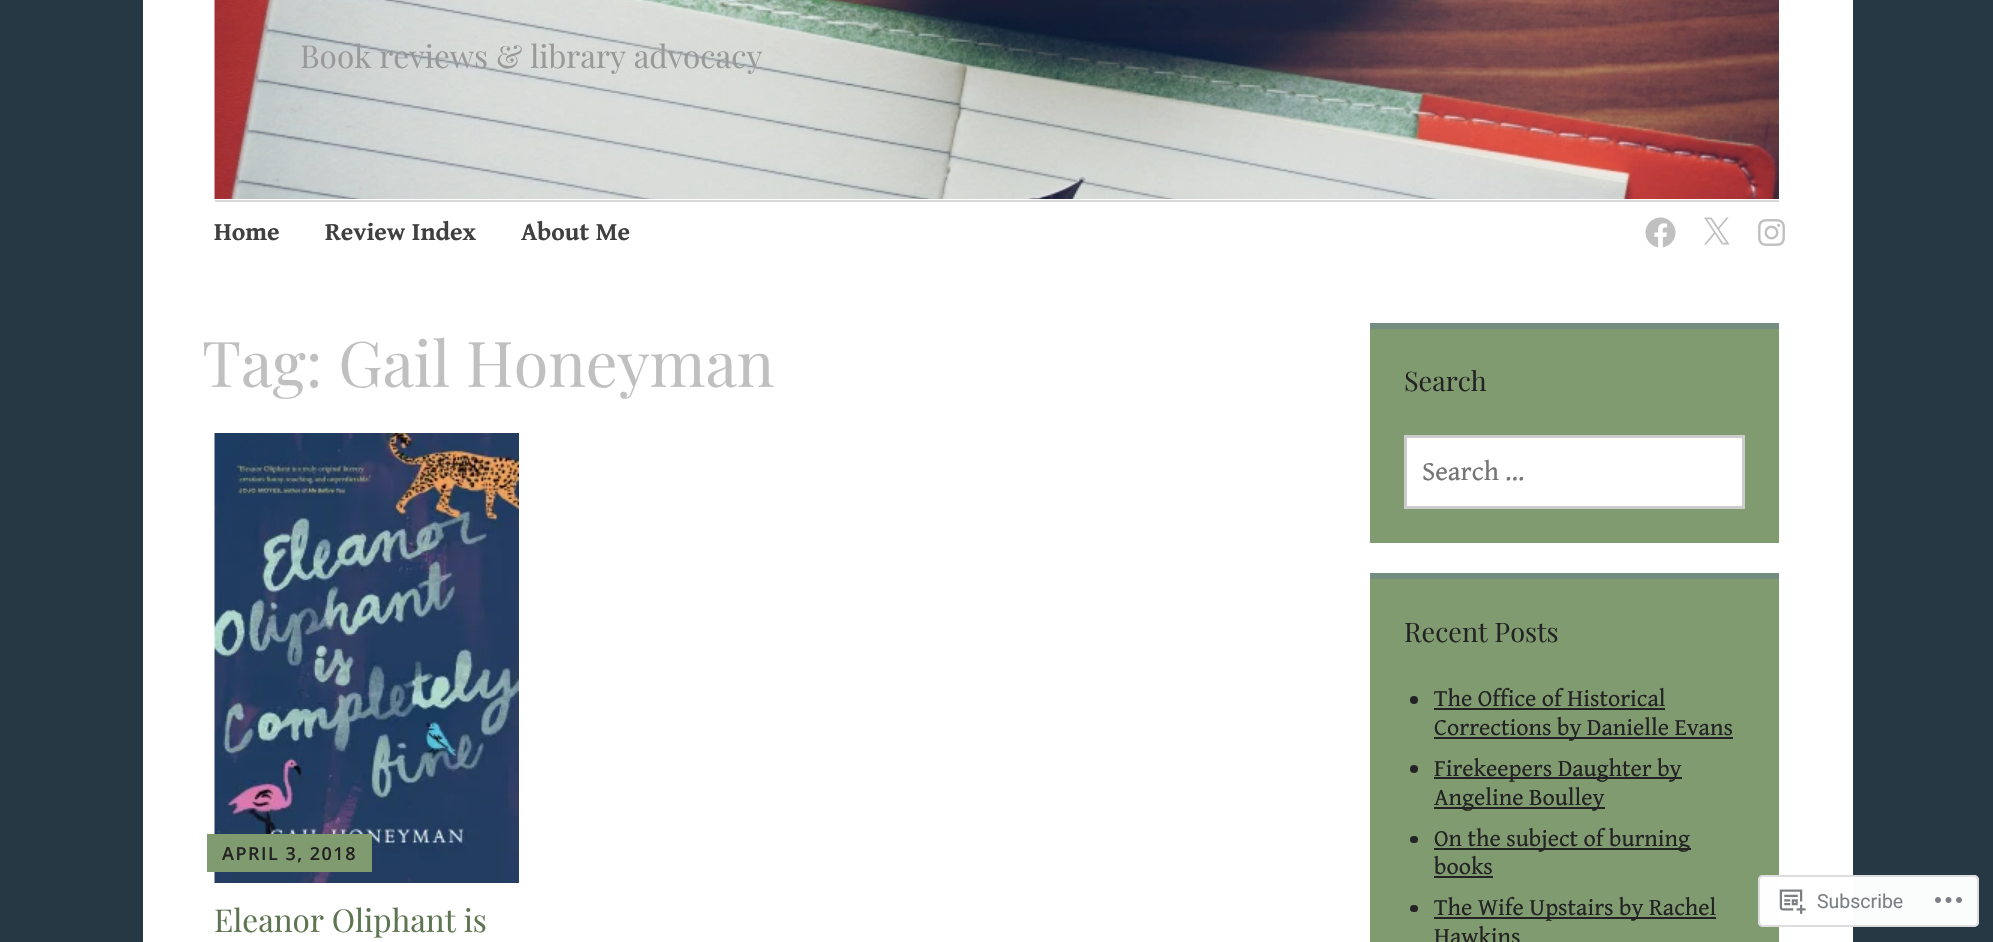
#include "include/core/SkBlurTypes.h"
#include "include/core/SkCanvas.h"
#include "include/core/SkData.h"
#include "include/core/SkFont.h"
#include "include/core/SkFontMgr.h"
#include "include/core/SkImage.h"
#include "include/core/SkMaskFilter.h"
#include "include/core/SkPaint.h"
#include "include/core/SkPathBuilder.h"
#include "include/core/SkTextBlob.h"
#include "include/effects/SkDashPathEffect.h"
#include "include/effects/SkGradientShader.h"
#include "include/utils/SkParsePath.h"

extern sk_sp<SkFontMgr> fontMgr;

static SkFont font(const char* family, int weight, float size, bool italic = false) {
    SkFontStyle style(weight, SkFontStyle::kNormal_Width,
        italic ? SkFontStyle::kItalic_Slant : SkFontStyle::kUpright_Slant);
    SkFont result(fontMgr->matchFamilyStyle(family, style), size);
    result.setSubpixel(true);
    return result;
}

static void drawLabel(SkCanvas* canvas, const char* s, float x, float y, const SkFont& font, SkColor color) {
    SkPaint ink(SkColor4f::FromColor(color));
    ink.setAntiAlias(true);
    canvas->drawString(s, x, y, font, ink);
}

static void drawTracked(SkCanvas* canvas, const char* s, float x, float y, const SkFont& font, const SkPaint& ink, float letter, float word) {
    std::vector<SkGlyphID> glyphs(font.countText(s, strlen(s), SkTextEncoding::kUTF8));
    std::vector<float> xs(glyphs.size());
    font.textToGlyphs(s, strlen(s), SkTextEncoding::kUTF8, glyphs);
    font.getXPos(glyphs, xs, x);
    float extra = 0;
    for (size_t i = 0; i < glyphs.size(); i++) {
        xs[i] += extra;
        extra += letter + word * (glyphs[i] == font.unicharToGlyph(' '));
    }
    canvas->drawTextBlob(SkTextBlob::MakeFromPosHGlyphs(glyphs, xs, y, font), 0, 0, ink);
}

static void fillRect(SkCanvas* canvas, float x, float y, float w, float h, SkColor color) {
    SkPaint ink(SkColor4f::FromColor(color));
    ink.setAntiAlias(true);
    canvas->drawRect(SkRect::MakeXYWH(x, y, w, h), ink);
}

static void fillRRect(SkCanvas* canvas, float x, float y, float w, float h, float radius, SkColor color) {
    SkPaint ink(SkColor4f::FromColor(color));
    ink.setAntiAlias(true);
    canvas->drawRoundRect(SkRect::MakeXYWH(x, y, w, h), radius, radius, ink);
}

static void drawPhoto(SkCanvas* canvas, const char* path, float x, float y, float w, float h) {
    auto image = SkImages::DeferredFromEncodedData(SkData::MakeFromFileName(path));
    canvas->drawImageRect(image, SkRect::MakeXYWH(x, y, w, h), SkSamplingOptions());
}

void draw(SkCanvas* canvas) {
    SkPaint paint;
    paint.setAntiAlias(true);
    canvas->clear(0xFF263844);
    fillRect(canvas, 143, 0, 1710, 942, 0xFFFFFFFF);
    drawPhoto(canvas, "assets/img1.png", 214, 0, 1565, 199);
    SkFont font1 = font("Playfair Display", 400, 31.5f);
    drawLabel(canvas, "Book reviews & library advocacy", 300, 68, font1, 0xFF999999);
    fillRect(canvas, 215, 200, 1564, 2, 0xFFD9D9D9);
    SkFont font2 = font("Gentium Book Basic", 700, 25.5f);
    drawLabel(canvas, "Home", 214, 240, font2, 0xFF404040);
    drawLabel(canvas, "Review Index", 325, 240, font2, 0xFF404040);
    drawLabel(canvas, "About Me", 521, 240, font2, 0xFF404040);
    drawPhoto(canvas, "assets/img2.png", 1645, 217, 31, 31);
    drawPhoto(canvas, "assets/img3.png", 1704, 217, 26, 28);
    drawPhoto(canvas, "assets/img4.png", 1758, 219, 27, 27);
    SkFont font3 = font("Playfair Display", 400, 63);
    drawLabel(canvas, "Tag: Gail Honeyman", 202, 387, font3, 0xFFC0C0C0);
    drawPhoto(canvas, "assets/img5.png", 214, 433, 305, 450);
    fillRect(canvas, 207, 834, 165, 38, 0xFF809B70);
    SkFont font4 = font("Open Sans", 600, 18);
    paint.setColor(0xFF232323);
    drawTracked(canvas, "APRIL 3, 2018", 222, 860, font4, paint, 1.5f, 0);
    drawLabel(canvas, "Eleanor Oliphant is", 214, 932, font1, 0xFF5E7551);
    fillRect(canvas, 1370, 329, 409, 214, 0xFF809B70);
    fillRect(canvas, 1370, 323, 409, 6, 0xFF738D82);
    SkFont font5 = font("Playfair Display", 400, 27);
    drawLabel(canvas, "Search", 1404, 391, font5, 0xFF232323);
    paint.setColor(0xFFFFFFFF);
    canvas->drawRect(SkRect::MakeXYWH(1405.5f, 436.5f, 338, 71), paint);
    paint.setStroke(true);
    paint.setStrokeWidth(3);
    paint.setColor(0xFFCCCCCC);
    canvas->drawRect(SkRect::MakeXYWH(1405.5f, 436.5f, 338, 71), paint);
    SkFont font6 = font("Gentium Book Basic", 400, 27);
    drawLabel(canvas, "Search …", 1422, 480, font6, 0xFF757575);
    fillRect(canvas, 1370, 579, 409, 363, 0xFF809B70);
    fillRect(canvas, 1370, 573, 409, 6, 0xFF738D82);
    drawLabel(canvas, "Recent Posts", 1404, 642, font5, 0xFF232323);
    paint.setStroke(false);
    paint.setColor(0xFF232323);
    canvas->drawCircle(1414, 700, 4, paint);
    SkFont font7 = font("Gentium Book Basic", 400, 24);
    drawLabel(canvas, "The Office of Historical", 1434, 706, font7, 0xFF232323);
    fillRect(canvas, 1434, 708, 231, 2, 0xFF232323);
    fillRect(canvas, 1434, 737, 299, 2, 0xFF232323);
    drawLabel(canvas, "Corrections by Danielle Evans", 1434, 735, font7, 0xFF232323);
    canvas->drawCircle(1414, 769, 4, paint);
    fillRect(canvas, 1434, 777, 248, 2, 0xFF232323);
    drawLabel(canvas, "Firekeepers Daughter by", 1434, 776, font7, 0xFF232323);
    fillRect(canvas, 1434, 807, 171, 2, 0xFF232323);
    drawLabel(canvas, "Angeline Boulley", 1434, 805, font7, 0xFF232323);
    fillRRect(canvas, 1410, 836, 8, 7, 3.5f, 0xFF232323);
    fillRect(canvas, 1434, 848, 257, 2, 0xFF232323);
    drawLabel(canvas, "On the subject of burning", 1434, 846, font7, 0xFF232323);
    drawLabel(canvas, "books", 1434, 874, font7, 0xFF232323);
    fillRect(canvas, 1434, 876, 59, 2, 0xFF232323);
    fillRRect(canvas, 1410, 905, 8, 7, 3.5f, 0xFF232323);
    fillRect(canvas, 1434, 917, 282, 2, 0xFF232323);
    drawLabel(canvas, "The Wife Upstairs by Rachel", 1434, 915, font7, 0xFF232323);
    drawLabel(canvas, "Hawkins", 1434, 944, font7, 0xFF232323);
    fillRRect(canvas, 1758, 875, 221, 52, 5, 0xFAFFFFFF);
    paint.setStroke(true);
    paint.setStrokeWidth(2);
    paint.setColor(0xFADCDCDE);
    canvas->drawRoundRect(SkRect::MakeXYWH(1759, 876, 219, 50), 4, 4, paint);
    drawPhoto(canvas, "assets/img6.png", 1779, 889, 27, 25);
    SkFont font8 = font("Roboto", 400, 19.5f);
    drawLabel(canvas, "Subscribe", 1817, 908, font8, 0xFF7B7F84);
    drawPhoto(canvas, "assets/img7.png", 1935, 897, 27, 6);
}
